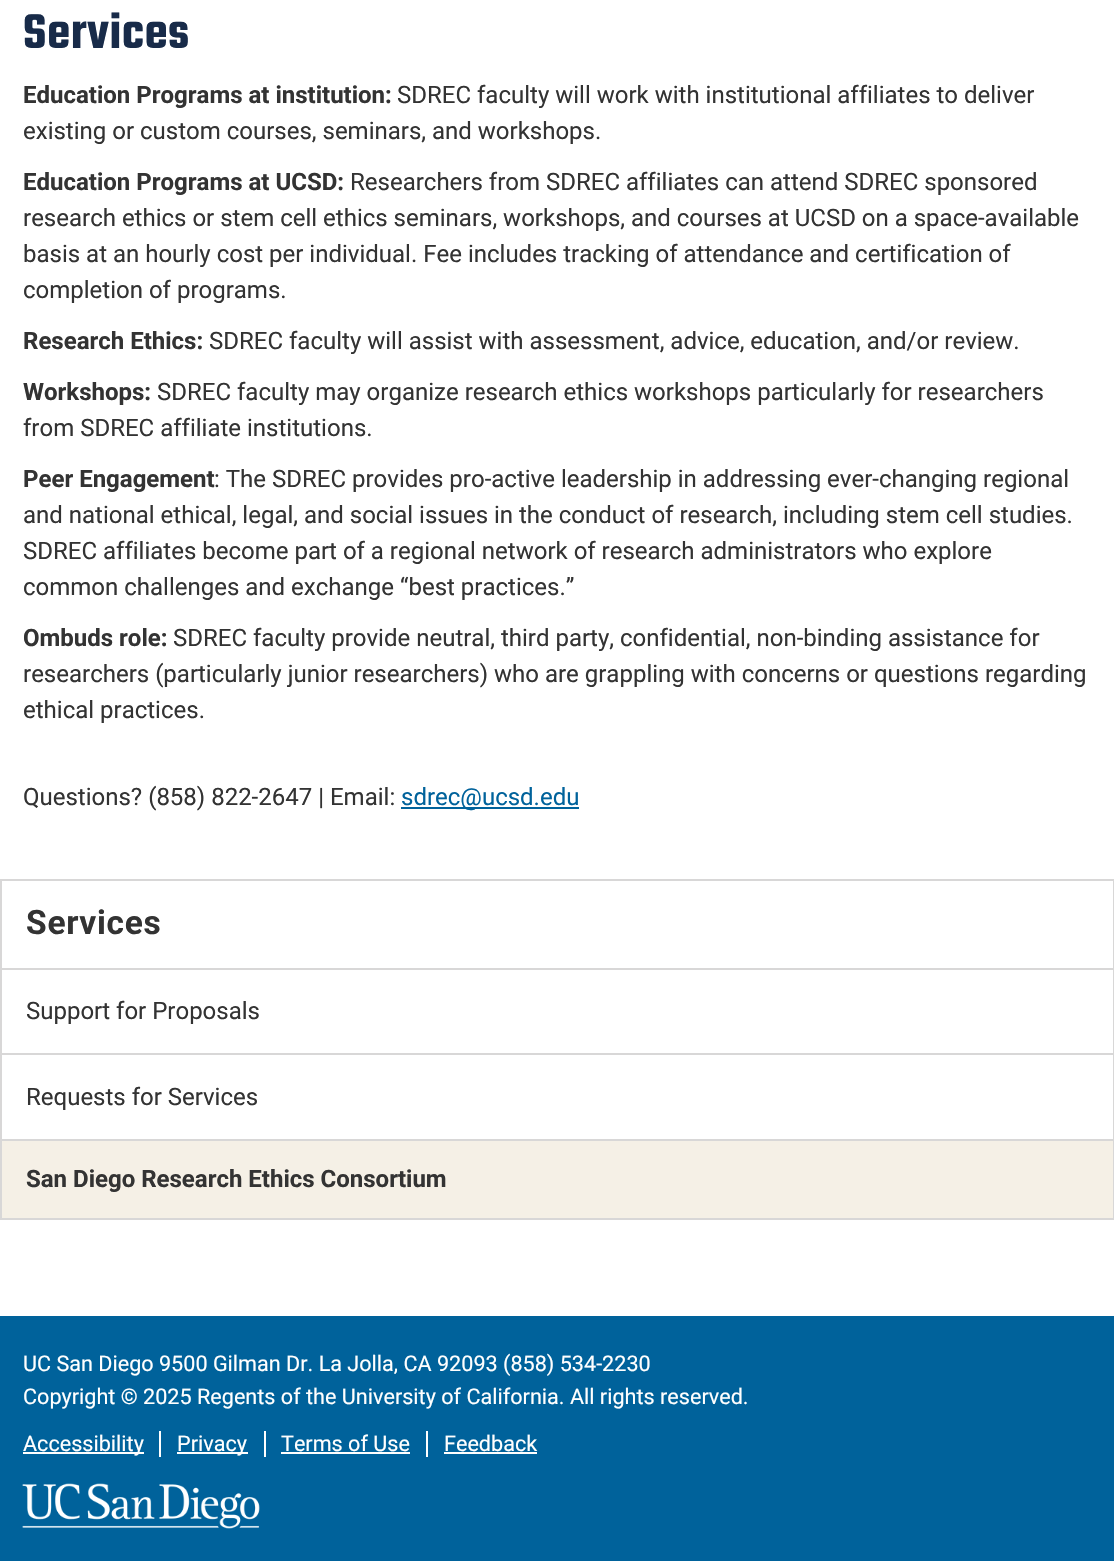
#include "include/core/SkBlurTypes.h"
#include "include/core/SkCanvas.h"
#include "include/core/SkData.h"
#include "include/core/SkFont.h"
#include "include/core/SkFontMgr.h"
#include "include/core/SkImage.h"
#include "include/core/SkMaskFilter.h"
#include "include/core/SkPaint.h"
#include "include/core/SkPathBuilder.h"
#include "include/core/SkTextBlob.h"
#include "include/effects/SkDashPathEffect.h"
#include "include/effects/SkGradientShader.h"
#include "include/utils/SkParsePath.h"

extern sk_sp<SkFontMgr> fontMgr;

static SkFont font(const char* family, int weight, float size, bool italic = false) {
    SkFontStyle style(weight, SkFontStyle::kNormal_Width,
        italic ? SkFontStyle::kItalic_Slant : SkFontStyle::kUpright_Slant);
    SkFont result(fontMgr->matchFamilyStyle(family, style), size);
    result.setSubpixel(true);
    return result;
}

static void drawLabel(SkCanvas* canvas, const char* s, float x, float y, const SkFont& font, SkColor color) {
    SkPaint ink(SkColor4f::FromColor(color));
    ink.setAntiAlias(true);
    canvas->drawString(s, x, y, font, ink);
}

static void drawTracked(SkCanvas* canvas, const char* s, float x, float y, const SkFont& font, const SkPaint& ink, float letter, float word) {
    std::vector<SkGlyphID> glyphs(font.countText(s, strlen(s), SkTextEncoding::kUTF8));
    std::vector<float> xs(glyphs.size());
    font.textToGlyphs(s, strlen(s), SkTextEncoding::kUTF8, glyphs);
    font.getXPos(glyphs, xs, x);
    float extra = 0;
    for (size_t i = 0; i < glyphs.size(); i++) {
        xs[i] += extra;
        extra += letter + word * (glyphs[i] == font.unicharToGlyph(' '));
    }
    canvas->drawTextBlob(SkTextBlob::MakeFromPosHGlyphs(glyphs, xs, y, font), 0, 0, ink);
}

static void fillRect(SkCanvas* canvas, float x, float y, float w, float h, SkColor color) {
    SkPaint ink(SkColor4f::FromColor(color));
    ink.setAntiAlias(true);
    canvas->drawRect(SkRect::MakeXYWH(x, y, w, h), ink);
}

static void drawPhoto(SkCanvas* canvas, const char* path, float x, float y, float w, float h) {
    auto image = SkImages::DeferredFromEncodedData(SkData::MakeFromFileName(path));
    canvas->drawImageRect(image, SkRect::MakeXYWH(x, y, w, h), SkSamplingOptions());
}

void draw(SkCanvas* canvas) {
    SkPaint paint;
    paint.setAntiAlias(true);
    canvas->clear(0xFFFFFFFF);
    SkFont font1 = font("Teko", 600, 53);
    paint.setColor(0xFF182B49);
    drawTracked(canvas, "Services", 23, 48, font1, paint, 0.75f, 0);
    SkFont font2 = font("Roboto", 700, 24);
    drawLabel(canvas, "Education Programs at institution:", 23, 103, font2, 0xFF333333);
    SkFont font3 = font("Roboto", 400, 24);
    drawLabel(canvas, "SDREC faculty will work with institutional affiliates to deliver", 397, 103, font3, 0xFF333333);
    drawLabel(canvas, "existing or custom courses, seminars, and workshops.", 23, 139, font3, 0xFF333333);
    drawLabel(canvas, "Education Programs at UCSD:", 23, 190, font2, 0xFF333333);
    drawLabel(canvas, "Researchers from SDREC affiliates can attend SDREC sponsored", 350, 190, font3, 0xFF333333);
    drawLabel(canvas, "research ethics or stem cell ethics seminars, workshops, and courses at UCSD on a space-available", 23, 226, font3, 0xFF333333);
    drawLabel(canvas, "basis at an hourly cost per individual. Fee includes tracking of attendance and certification of", 23, 262, font3, 0xFF333333);
    drawLabel(canvas, "completion of programs.", 23, 298, font3, 0xFF333333);
    drawLabel(canvas, "Research Ethics:", 23, 349, font2, 0xFF333333);
    drawLabel(canvas, "SDREC faculty will assist with assessment, advice, education, and/or review.", 209, 349, font3, 0xFF333333);
    drawLabel(canvas, "Workshops:", 23, 400, font2, 0xFF333333);
    drawLabel(canvas, "SDREC faculty may organize research ethics workshops particularly for researchers", 157, 400, font3, 0xFF333333);
    drawLabel(canvas, "from SDREC affiliate institutions.", 23, 436, font3, 0xFF333333);
    drawLabel(canvas, "Peer Engagement", 23, 487, font2, 0xFF333333);
    drawLabel(canvas, ": The SDREC provides pro-active leadership in addressing ever-changing regional", 214, 487, font3, 0xFF333333);
    drawLabel(canvas, "and national ethical, legal, and social issues in the conduct of research, including stem cell studies.", 23, 523, font3, 0xFF333333);
    drawLabel(canvas, "SDREC affiliates become part of a regional network of research administrators who explore", 23, 559, font3, 0xFF333333);
    drawLabel(canvas, "common challenges and exchange “best practices.”", 23, 595, font3, 0xFF333333);
    drawLabel(canvas, "Ombuds role:", 23, 646, font2, 0xFF333333);
    drawLabel(canvas, "SDREC faculty provide neutral, third party, confidential, non-binding assistance for", 173, 646, font3, 0xFF333333);
    drawLabel(canvas, "researchers (particularly junior researchers) who are grappling with concerns or questions regarding", 23, 682, font3, 0xFF333333);
    drawLabel(canvas, "ethical practices.", 23, 718, font3, 0xFF333333);
    drawLabel(canvas, "Questions? (858) 822-2647 | Email:", 23, 805, font3, 0xFF333333);
    fillRect(canvas, 401, 807, 178, 2, 0xFF00629B);
    drawLabel(canvas, "sdrec@ucsd.edu", 401, 805, font3, 0xFF00629B);
    paint.setStroke(true);
    paint.setStrokeWidth(2);
    paint.setColor(0xFFD8D7D7);
    canvas->drawRect(SkRect::MakeXYWH(1, 880, 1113, 339), paint);
    SkFont font4 = font("Roboto", 700, 33.5f);
    paint.setStroke(false);
    paint.setColor(0xFF333333);
    drawTracked(canvas, "Services", 26, 934, font4, paint, 0.75f, 0);
    fillRect(canvas, 2, 968, 1111, 2, 0xFFD8D7D7);
    drawLabel(canvas, "Support for Proposals", 26, 1019, font3, 0xFF333333);
    fillRect(canvas, 2, 1053, 1111, 2, 0xFFD8D7D7);
    drawLabel(canvas, "Requests for Services", 26, 1105, font3, 0xFF333333);
    fillRect(canvas, 2, 1141, 1111, 77, 0xFFF5F0E6);
    fillRect(canvas, 2, 1139, 1111, 2, 0xFFD8D7D7);
    drawLabel(canvas, "San Diego Research Ethics Consortium", 26, 1187, font2, 0xFF333333);
    fillRect(canvas, 0, 1316, 1114, 245, 0xFF00629B);
    SkFont font5 = font("Roboto", 400, 21.6f);
    drawLabel(canvas, "UC San Diego 9500 Gilman Dr. La Jolla, CA 92093 (858) 534-2230", 23, 1371, font5, 0xFFFFFFFF);
    drawLabel(canvas, "Copyright © 2025 Regents of the University of California. All rights reserved.", 23, 1404, font5, 0xFFFFFFFF);
    fillRect(canvas, 23, 1452, 121, 2, 0xFFFFFFFF);
    drawLabel(canvas, "Accessibility", 23, 1451, font5, 0xFFFFFFFF);
    fillRect(canvas, 159, 1431, 2, 26, 0xFFFFFFFF);
    fillRect(canvas, 177, 1452, 71, 2, 0xFFFFFFFF);
    drawLabel(canvas, "Privacy", 177, 1451, font5, 0xFFFFFFFF);
    fillRect(canvas, 264, 1431, 2, 26, 0xFFFFFFFF);
    drawLabel(canvas, "Terms of Use", 281, 1451, font5, 0xFFFFFFFF);
    fillRect(canvas, 426, 1431, 2, 26, 0xFFFFFFFF);
    fillRect(canvas, 281, 1452, 129, 2, 0xFFFFFFFF);
    drawLabel(canvas, "Feedback", 444, 1451, font5, 0xFFFFFFFF);
    fillRect(canvas, 444, 1452, 93, 2, 0xFFFFFFFF);
    drawPhoto(canvas, "assets/img1.png", 22, 1483, 238, 46);
}
